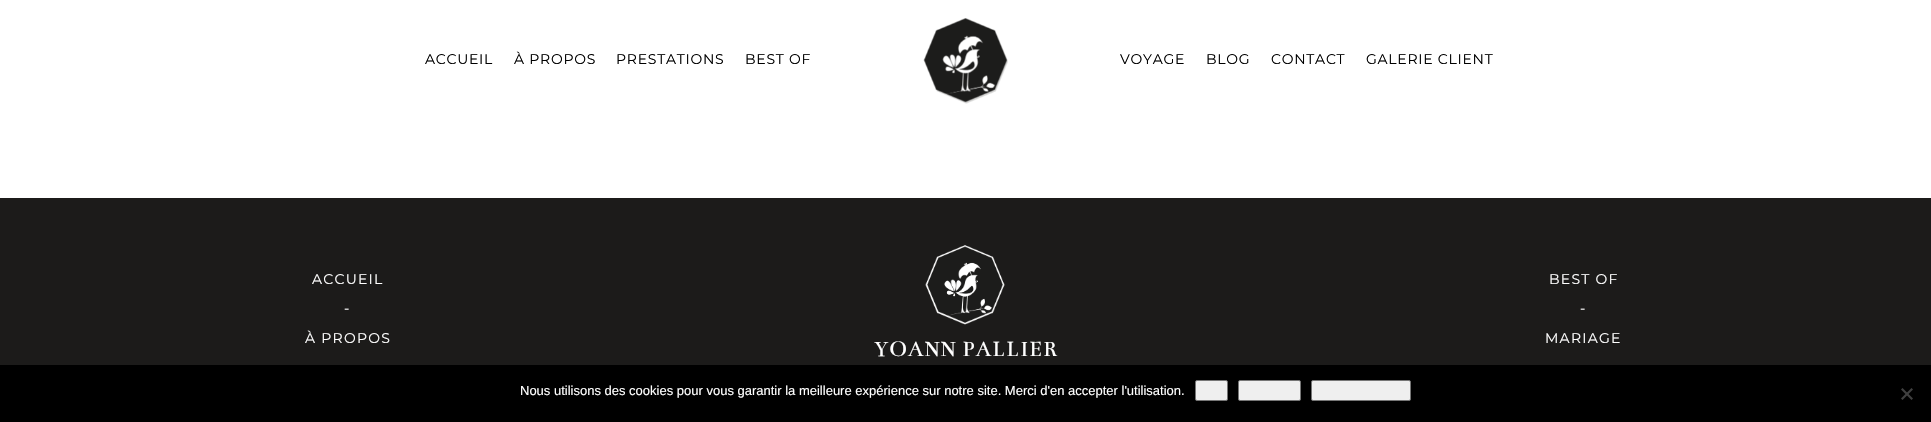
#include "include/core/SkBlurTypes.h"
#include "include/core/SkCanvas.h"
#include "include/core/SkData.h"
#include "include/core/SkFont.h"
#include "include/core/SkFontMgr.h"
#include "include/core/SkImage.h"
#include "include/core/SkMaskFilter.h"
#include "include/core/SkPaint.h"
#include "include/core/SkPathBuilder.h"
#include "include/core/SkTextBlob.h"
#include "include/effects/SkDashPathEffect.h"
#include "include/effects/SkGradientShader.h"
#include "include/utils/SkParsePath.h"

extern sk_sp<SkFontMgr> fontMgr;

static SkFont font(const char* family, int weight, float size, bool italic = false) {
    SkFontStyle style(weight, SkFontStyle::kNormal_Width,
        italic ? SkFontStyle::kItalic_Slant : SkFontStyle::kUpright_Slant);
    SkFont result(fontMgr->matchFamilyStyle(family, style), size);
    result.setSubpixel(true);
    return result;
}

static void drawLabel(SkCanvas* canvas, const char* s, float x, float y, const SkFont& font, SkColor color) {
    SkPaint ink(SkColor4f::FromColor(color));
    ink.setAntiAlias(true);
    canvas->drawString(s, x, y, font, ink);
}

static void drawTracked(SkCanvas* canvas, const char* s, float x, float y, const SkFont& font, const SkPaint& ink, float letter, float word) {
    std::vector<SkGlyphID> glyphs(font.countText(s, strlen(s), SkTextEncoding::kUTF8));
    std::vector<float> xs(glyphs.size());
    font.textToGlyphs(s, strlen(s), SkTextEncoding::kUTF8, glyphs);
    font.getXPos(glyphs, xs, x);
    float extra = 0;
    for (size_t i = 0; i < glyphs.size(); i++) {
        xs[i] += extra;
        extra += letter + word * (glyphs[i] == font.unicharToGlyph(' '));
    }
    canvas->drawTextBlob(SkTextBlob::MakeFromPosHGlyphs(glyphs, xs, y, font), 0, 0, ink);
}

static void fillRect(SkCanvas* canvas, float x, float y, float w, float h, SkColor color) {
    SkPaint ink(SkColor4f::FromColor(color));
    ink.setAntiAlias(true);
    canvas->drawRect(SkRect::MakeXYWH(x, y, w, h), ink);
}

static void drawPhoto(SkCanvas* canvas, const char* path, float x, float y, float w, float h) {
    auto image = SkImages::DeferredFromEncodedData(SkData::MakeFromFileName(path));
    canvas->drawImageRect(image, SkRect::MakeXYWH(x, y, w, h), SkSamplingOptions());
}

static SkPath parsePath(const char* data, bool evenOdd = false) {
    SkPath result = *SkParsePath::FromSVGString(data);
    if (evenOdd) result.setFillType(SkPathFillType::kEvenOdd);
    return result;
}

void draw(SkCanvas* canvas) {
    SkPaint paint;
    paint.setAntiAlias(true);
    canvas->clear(0xFFFFFFFF);
    SkFont font1 = font("Montserrat", 100, 14);
    paint.setColor(0xFF000000);
    drawTracked(canvas, "ACCUEIL", 425, 64, font1, paint, 0.75f, 0);
    drawTracked(canvas, "À PROPOS", 514, 64, font1, paint, 0.75f, 0);
    drawTracked(canvas, "PRESTATIONS", 616, 64, font1, paint, 0.75f, 0);
    drawTracked(canvas, "BEST OF", 745, 64, font1, paint, 0.75f, 0);
    drawPhoto(canvas, "assets/img1.png", 923, 18, 85, 86);
    drawTracked(canvas, "VOYAGE", 1120, 64, font1, paint, 0.75f, 0);
    drawTracked(canvas, "BLOG", 1206, 64, font1, paint, 0.75f, 0);
    drawTracked(canvas, "CONTACT", 1271, 64, font1, paint, 0.75f, 0);
    drawTracked(canvas, "GALERIE CLIENT", 1366, 64, font1, paint, 0.75f, 0);
    fillRect(canvas, 0, 198, 1931, 167, 0xFF1C1B1A);
    paint.setColor(0xFFFFFFFF);
    drawTracked(canvas, "ACCUEIL", 312, 284, font1, paint, 1.25f, 0);
    drawTracked(canvas, "-", 344, 313, font1, paint, 1.25f, 0);
    drawTracked(canvas, "À PROPOS", 305, 343, font1, paint, 1.25f, 0);
    drawTracked(canvas, "BEST OF", 1549, 284, font1, paint, 1.25f, 0);
    drawTracked(canvas, "-", 1580, 313, font1, paint, 1.25f, 0);
    drawTracked(canvas, "MARIAGE", 1545, 343, font1, paint, 1.25f, 0);
    drawPhoto(canvas, "assets/img2.png", 925, 245, 80, 80);
    SkFont font2 = font("Bentham", 400, 23);
    drawTracked(canvas, "YOANN PALLIER", 874, 356, font2, paint, 0.75f, 0);
    fillRect(canvas, 0, 365, 1931, 57, 0xFF000000);
    SkFont font3 = font("Liberation Sans", 400, 13);
    drawLabel(canvas, "Nous utilisons des cookies pour vous garantir la meilleure expérience sur notre site. Merci d'en accepter l'utilisation.", 520, 395, font3, 0xFFFFFFFF);
    paint.setColor(0xFFEFEFEF);
    canvas->drawRoundRect(SkRect::MakeXYWH(1195.5f, 380.5f, 32, 20), 1.5f, 1.5f, paint);
    paint.setStroke(true);
    paint.setStrokeWidth(1);
    paint.setColor(0xFF767676);
    canvas->drawRoundRect(SkRect::MakeXYWH(1195.5f, 380.5f, 32, 20), 1.5f, 1.5f, paint);
    paint.setStroke(false);
    paint.setColor(0xFFEFEFEF);
    canvas->drawRoundRect(SkRect::MakeXYWH(1238.5f, 380.5f, 62, 20), 1.5f, 1.5f, paint);
    paint.setStroke(true);
    paint.setColor(0xFF767676);
    canvas->drawRoundRect(SkRect::MakeXYWH(1238.5f, 380.5f, 62, 20), 1.5f, 1.5f, paint);
    paint.setStroke(false);
    paint.setColor(0xFFEFEFEF);
    canvas->drawRoundRect(SkRect::MakeXYWH(1311.5f, 380.5f, 99, 20), 1.5f, 1.5f, paint);
    paint.setStroke(true);
    paint.setColor(0xFF767676);
    canvas->drawRoundRect(SkRect::MakeXYWH(1311.5f, 380.5f, 99, 20), 1.5f, 1.5f, paint);
    paint.setStroke(false);
    paint.setColor(0xFF404040);
    canvas->drawPath(parsePath("M1911.5 388L1913 389.5L1902.5 400L1901 398.5Z"), paint);
    canvas->drawPath(parsePath("M1901 389.5L1902.5 388L1913 398.5L1911.5 400Z"), paint);
}
